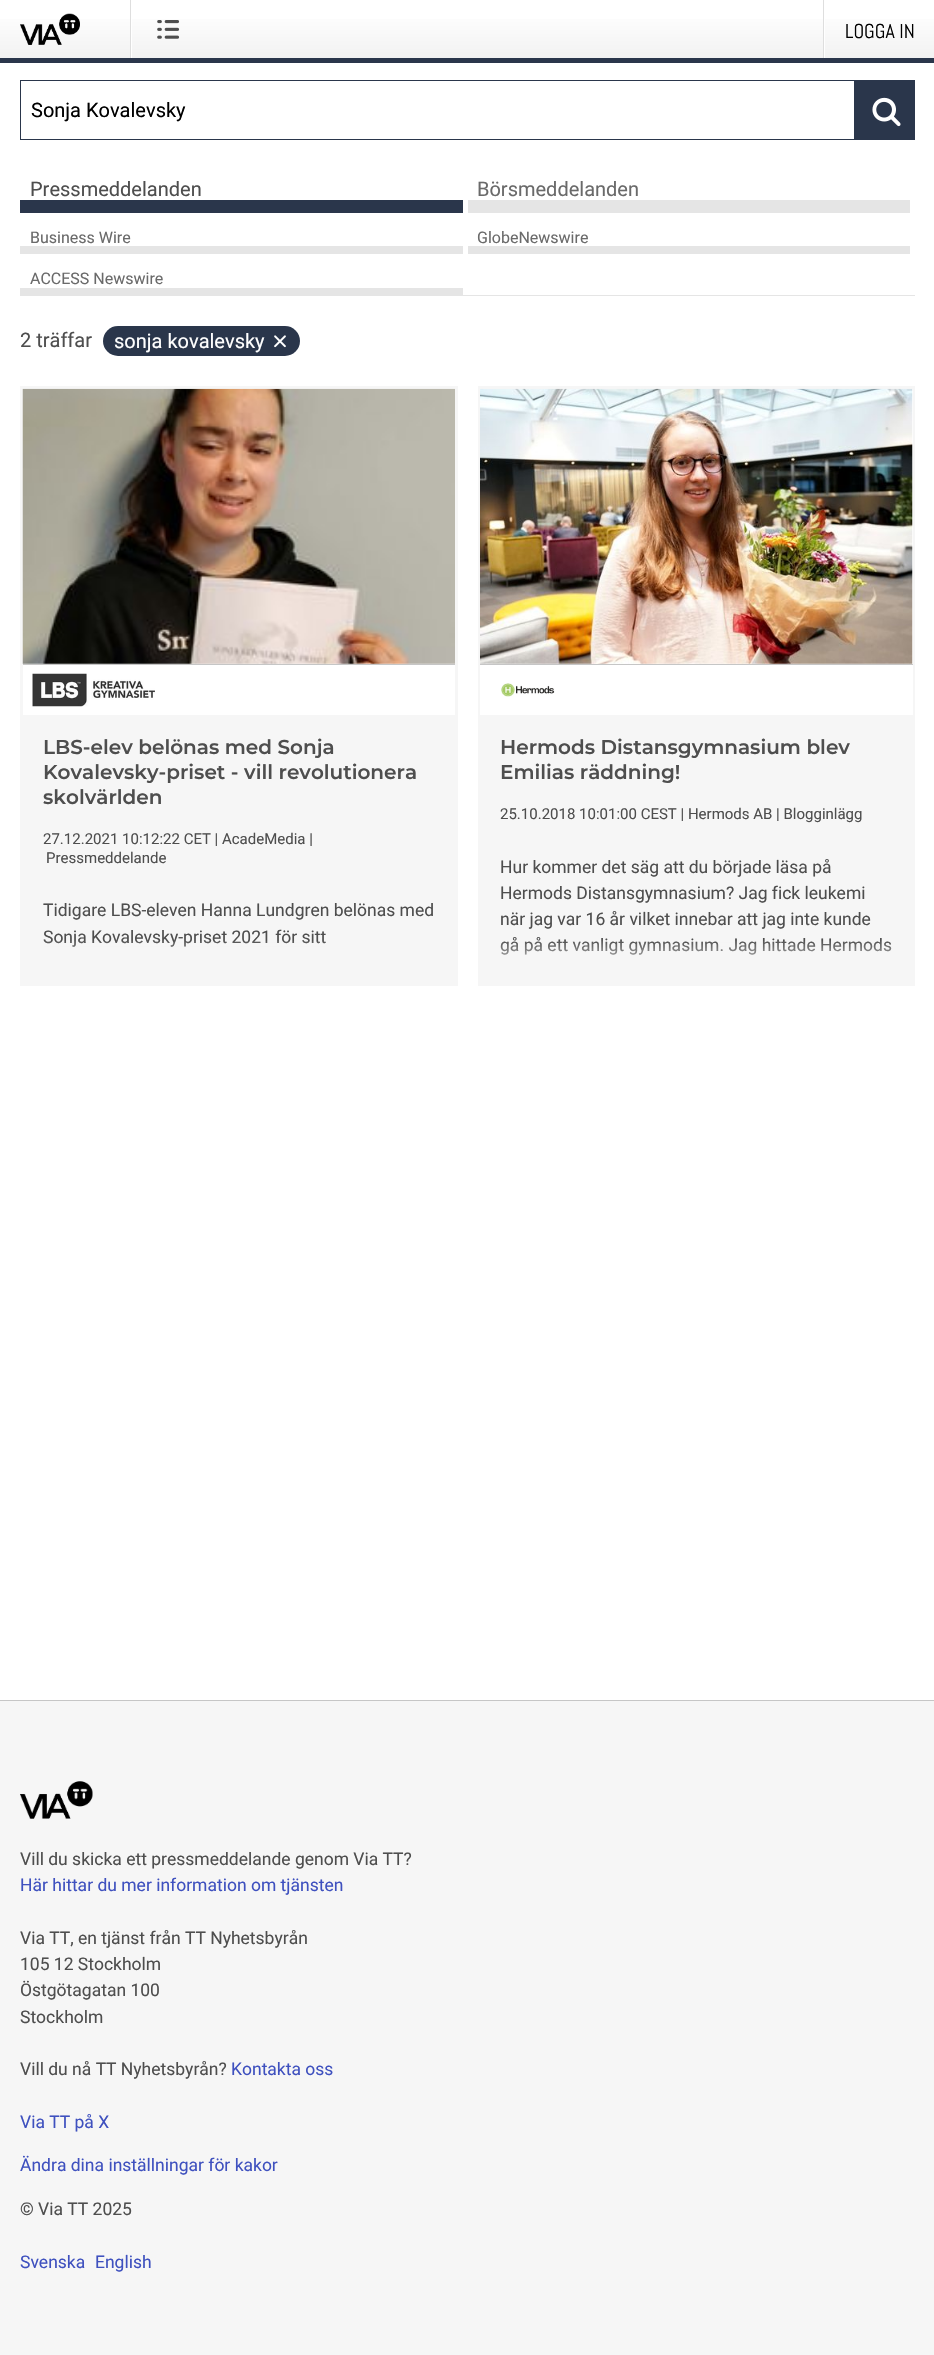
#include "include/core/SkBlurTypes.h"
#include "include/core/SkCanvas.h"
#include "include/core/SkData.h"
#include "include/core/SkFont.h"
#include "include/core/SkFontMgr.h"
#include "include/core/SkImage.h"
#include "include/core/SkMaskFilter.h"
#include "include/core/SkPaint.h"
#include "include/core/SkPathBuilder.h"
#include "include/core/SkTextBlob.h"
#include "include/effects/SkDashPathEffect.h"
#include "include/effects/SkGradientShader.h"
#include "include/utils/SkParsePath.h"

extern sk_sp<SkFontMgr> fontMgr;

static SkFont font(const char* family, int weight, float size, bool italic = false) {
    SkFontStyle style(weight, SkFontStyle::kNormal_Width,
        italic ? SkFontStyle::kItalic_Slant : SkFontStyle::kUpright_Slant);
    SkFont result(fontMgr->matchFamilyStyle(family, style), size);
    result.setSubpixel(true);
    return result;
}

static void drawLabel(SkCanvas* canvas, const char* s, float x, float y, const SkFont& font, SkColor color) {
    SkPaint ink(SkColor4f::FromColor(color));
    ink.setAntiAlias(true);
    canvas->drawString(s, x, y, font, ink);
}

static void fillRect(SkCanvas* canvas, float x, float y, float w, float h, SkColor color) {
    SkPaint ink(SkColor4f::FromColor(color));
    ink.setAntiAlias(true);
    canvas->drawRect(SkRect::MakeXYWH(x, y, w, h), ink);
}

static void fillRRect(SkCanvas* canvas, float x, float y, float w, float h, float radius, SkColor color) {
    SkPaint ink(SkColor4f::FromColor(color));
    ink.setAntiAlias(true);
    canvas->drawRoundRect(SkRect::MakeXYWH(x, y, w, h), radius, radius, ink);
}

static void drawPhoto(SkCanvas* canvas, const char* path, float x, float y, float w, float h) {
    auto image = SkImages::DeferredFromEncodedData(SkData::MakeFromFileName(path));
    canvas->drawImageRect(image, SkRect::MakeXYWH(x, y, w, h), SkSamplingOptions());
}

void draw(SkCanvas* canvas) {
    SkPaint paint;
    paint.setAntiAlias(true);
    canvas->clear(0xFFFFFFFF);
    {
        const SkColor colors[] = {0xFFFFFFFF, 0xFFF2F2F2};
        const float stops[] = {0.16f, 1};
        const SkPoint ends[] = {{468, 0}, {468, 58}};
        paint.setShader(SkGradientShader::MakeLinear(ends, colors, stops, 2, SkTileMode::kClamp));
        paint.setAlpha(255);
    }
    canvas->drawRect(SkRect::MakeXYWH(0, 19, 934, 39), paint);
    fillRect(canvas, 0, 58, 934, 5, 0xFF2A364B);
    drawPhoto(canvas, "assets/img1.png", 20, 13, 60, 32);
    fillRect(canvas, 131, 19, 1, 39, 0xFFFFFFFF);
    fillRect(canvas, 130, 0, 1, 58, 0xFFDEDEDE);
    drawPhoto(canvas, "assets/img2.png", 157, 20, 23, 19);
    fillRect(canvas, 824, 19, 1, 39, 0xFFFFFFFF);
    fillRect(canvas, 823, 0, 1, 58, 0xFFDEDEDE);
    SkFont font1 = font("Abel", 400, 20);
    drawLabel(canvas, "LOGGA IN", 845, 38, font1, 0xFF000000);
    paint.setStroke(true);
    paint.setStrokeWidth(1);
    paint.setShader(nullptr);
    paint.setColor(0xFF2A364B);
    canvas->drawRect(SkRect::MakeXYWH(20.5f, 80.5f, 834, 59), paint);
    SkFont font2 = font("Roboto", 400, 20);
    drawLabel(canvas, "Sonja Kovalevsky", 31, 117, font2, 0xFF000000);
    fillRect(canvas, 855, 80, 60, 60, 0xFF2A364B);
    drawPhoto(canvas, "assets/img3.png", 872, 97, 29, 30);
    fillRect(canvas, 20, 295, 895, 1, 0xFFE5E5E5);
    fillRect(canvas, 20, 200, 443, 13, 0xFF2A364B);
    drawLabel(canvas, "Pressmeddelanden", 30, 196, font2, 0xFF4E4E4E);
    fillRect(canvas, 468, 200, 442, 13, 0xFFE5E5E5);
    drawLabel(canvas, "Börsmeddelanden", 477, 196, font2, 0xFF6A6A6A);
    fillRect(canvas, 20, 246, 443, 8, 0xFFE5E5E5);
    SkFont font3 = font("Roboto", 400, 16);
    drawLabel(canvas, "Business Wire", 30, 243, font3, 0xFF6A6A6A);
    fillRect(canvas, 468, 246, 442, 8, 0xFFE5E5E5);
    drawLabel(canvas, "GlobeNewswire", 477, 243, font3, 0xFF6A6A6A);
    fillRect(canvas, 20, 288, 443, 7, 0xFFE5E5E5);
    drawLabel(canvas, "ACCESS Newswire", 30, 284, font3, 0xFF6A6A6A);
    drawLabel(canvas, "2 träffar", 20, 347, font2, 0xFF4E4E4E);
    fillRRect(canvas, 103, 326, 197, 30, 15, 0xFF2A364B);
    drawLabel(canvas, "sonja kovalevsky", 114, 348, font2, 0xFFFFFFFF);
    drawPhoto(canvas, "assets/img4.png", 274, 335, 12, 13);
    fillRect(canvas, 20, 386, 438, 600, 0xFFF6F6F6);
    fillRect(canvas, 23, 664, 432, 1, 0xFFC6C6C6);
    drawPhoto(canvas, "assets/img5.png", 22, 388, 433, 276);
    fillRect(canvas, 23, 665, 432, 50, 0xFFFFFFFF);
    drawPhoto(canvas, "assets/img6.png", 32, 673, 123, 34);
    SkFont font4 = font("Montserrat", 100, 20);
    drawLabel(canvas, "LBS-elev belönas med Sonja", 43, 754, font4, 0xFF4E4E4E);
    drawLabel(canvas, "Kovalevsky-priset - vill revolutionera", 43, 779, font4, 0xFF4E4E4E);
    drawLabel(canvas, "skolvärlden", 43, 804, font4, 0xFF4E4E4E);
    SkFont font5 = font("Roboto", 400, 15);
    drawLabel(canvas, "27.12.2021 10:12:22 CET | AcadeMedia |", 43, 844, font5, 0xFF4E4E4E);
    drawLabel(canvas, "Pressmeddelande", 46, 863, font5, 0xFF4E4E4E);
    SkFont font6 = font("Roboto", 400, 17.5f);
    drawLabel(canvas, "Tidigare LBS-eleven Hanna Lundgren belönas med", 43, 916, font6, 0xFF4E4E4E);
    drawLabel(canvas, "Sonja Kovalevsky-priset 2021 för sitt", 43, 943, font6, 0xFF4E4E4E);
    paint.setStroke(false);
    {
        const SkColor colors[] = {0x00F6F6F6, 0xFFF6F6F6};
        const float stops[] = {0, 0.8f};
        const SkPoint ends[] = {{239, 940}, {239, 984}};
        paint.setShader(SkGradientShader::MakeLinear(ends, colors, stops, 2, SkTileMode::kClamp));
        paint.setAlpha(255);
    }
    canvas->drawRect(SkRect::MakeXYWH(44, 941, 281, 6), paint);
    fillRect(canvas, 478, 386, 437, 600, 0xFFF6F6F6);
    fillRect(canvas, 480, 664, 433, 1, 0xFFC6C6C6);
    fillRect(canvas, 480, 389, 433, 275, 0xFFFFFFFF);
    drawPhoto(canvas, "assets/img7.png", 480, 388, 433, 276);
    fillRect(canvas, 480, 665, 433, 50, 0xFFFFFFFF);
    drawPhoto(canvas, "assets/img8.png", 501, 683, 54, 14);
    drawLabel(canvas, "Hermods Distansgymnasium blev", 500, 754, font4, 0xFF4E4E4E);
    drawLabel(canvas, "Emilias räddning!", 500, 779, font4, 0xFF4E4E4E);
    drawLabel(canvas, "25.10.2018 10:01:00 CEST | Hermods AB | Blogginlägg", 500, 819, font5, 0xFF4E4E4E);
    drawLabel(canvas, "Hur kommer det säg att du började läsa på", 500, 873, font6, 0xFF4E4E4E);
    drawLabel(canvas, "Hermods Distansgymnasium? Jag fick leukemi", 500, 899, font6, 0xFF4E4E4E);
    drawLabel(canvas, "när jag var 16 år vilket innebar att jag inte kunde", 500, 925, font6, 0xFF4E4E4E);
    drawLabel(canvas, "gå på ett vanligt gymnasium. Jag hittade Hermods", 500, 951, font6, 0xFF4E4E4E);
    {
        const SkColor colors[] = {0x00F6F6F6, 0xFFF6F6F6};
        const float stops[] = {0, 0.8f};
        const SkPoint ends[] = {{696, 940}, {696, 984}};
        paint.setShader(SkGradientShader::MakeLinear(ends, colors, stops, 2, SkTileMode::kClamp));
        paint.setAlpha(255);
    }
    canvas->drawRect(SkRect::MakeXYWH(500, 941, 392, 14), paint);
    fillRect(canvas, 0, 1701, 934, 654, 0xFFF6F6F6);
    fillRect(canvas, 0, 1700, 934, 1, 0xFFC6C6C6);
    drawPhoto(canvas, "assets/img9.png", 20, 1781, 73, 38);
    drawLabel(canvas, "Vill du skicka ett pressmeddelande genom Via TT?", 20, 1865, font6, 0xFF4E4E4E);
    drawLabel(canvas, "Här hittar du mer information om tjänsten", 20, 1891, font6, 0xFF3F51BF);
    drawLabel(canvas, "Via TT, en tjänst från TT Nyhetsbyrån", 20, 1944, font6, 0xFF4E4E4E);
    drawLabel(canvas, "105 12 Stockholm", 20, 1970, font6, 0xFF4E4E4E);
    drawLabel(canvas, "Östgötagatan 100", 20, 1996, font6, 0xFF4E4E4E);
    drawLabel(canvas, "Stockholm", 20, 2023, font6, 0xFF4E4E4E);
    drawLabel(canvas, "Vill du nå TT Nyhetsbyrån?", 20, 2075, font6, 0xFF4E4E4E);
    drawLabel(canvas, "Kontakta oss", 231, 2075, font6, 0xFF3F51BF);
    drawLabel(canvas, "Via TT på X", 20, 2128, font6, 0xFF3F51BF);
    drawLabel(canvas, "Ändra dina inställningar för kakor", 20, 2171, font6, 0xFF3F51BF);
    drawLabel(canvas, "© Via TT 2025", 20, 2215, font6, 0xFF4E4E4E);
    drawLabel(canvas, "Svenska", 20, 2268, font6, 0xFF3F51BF);
    drawLabel(canvas, "English", 95, 2268, font6, 0xFF3F51BF);
}
